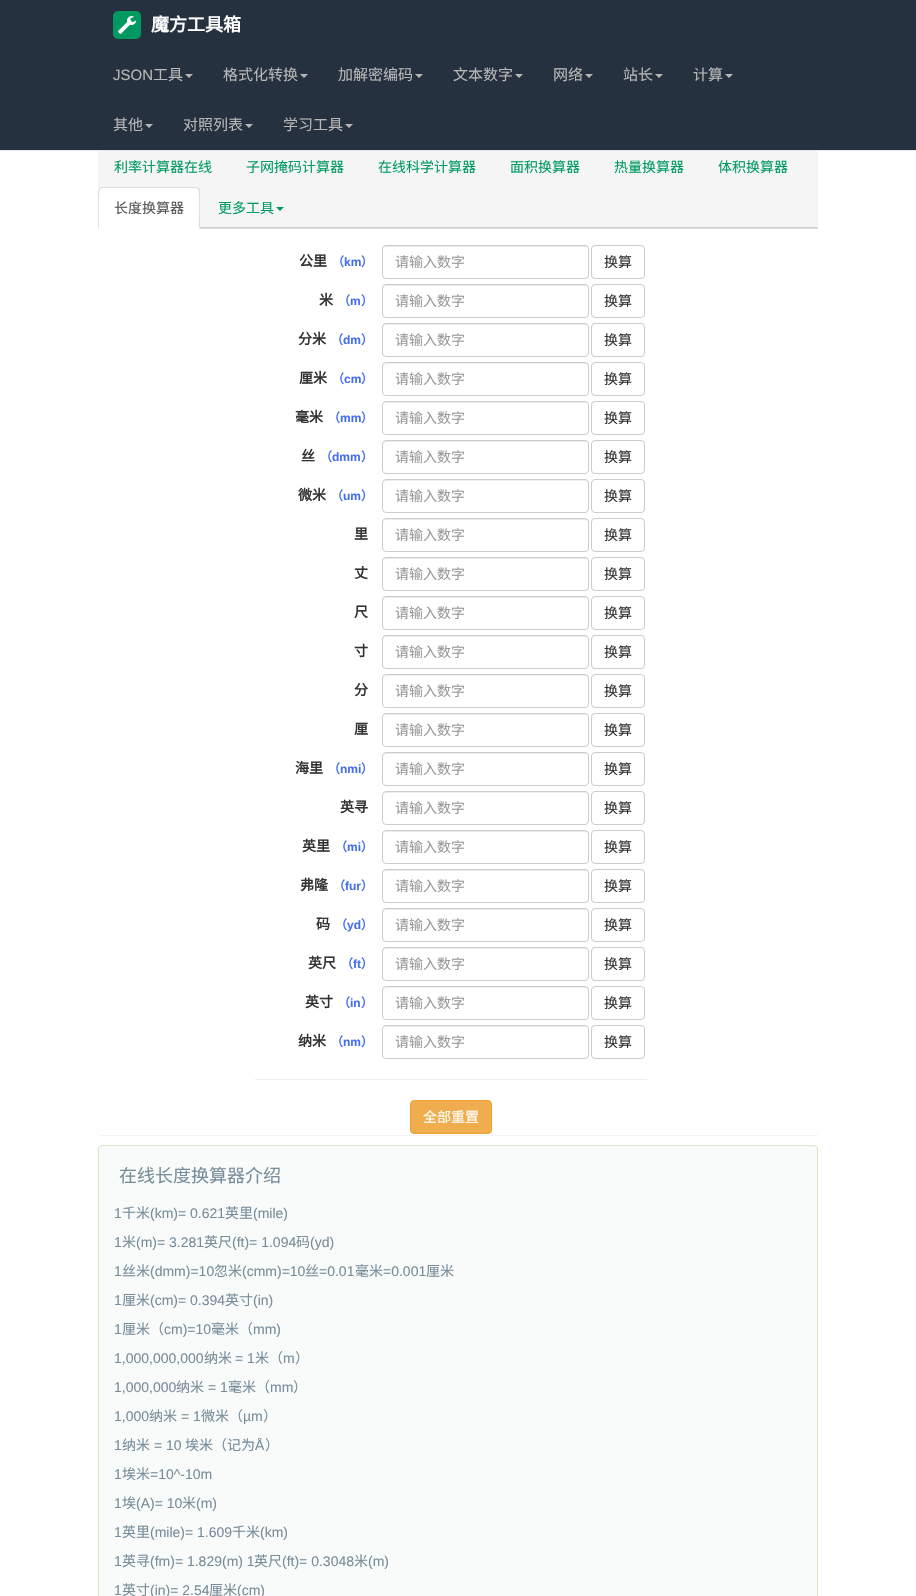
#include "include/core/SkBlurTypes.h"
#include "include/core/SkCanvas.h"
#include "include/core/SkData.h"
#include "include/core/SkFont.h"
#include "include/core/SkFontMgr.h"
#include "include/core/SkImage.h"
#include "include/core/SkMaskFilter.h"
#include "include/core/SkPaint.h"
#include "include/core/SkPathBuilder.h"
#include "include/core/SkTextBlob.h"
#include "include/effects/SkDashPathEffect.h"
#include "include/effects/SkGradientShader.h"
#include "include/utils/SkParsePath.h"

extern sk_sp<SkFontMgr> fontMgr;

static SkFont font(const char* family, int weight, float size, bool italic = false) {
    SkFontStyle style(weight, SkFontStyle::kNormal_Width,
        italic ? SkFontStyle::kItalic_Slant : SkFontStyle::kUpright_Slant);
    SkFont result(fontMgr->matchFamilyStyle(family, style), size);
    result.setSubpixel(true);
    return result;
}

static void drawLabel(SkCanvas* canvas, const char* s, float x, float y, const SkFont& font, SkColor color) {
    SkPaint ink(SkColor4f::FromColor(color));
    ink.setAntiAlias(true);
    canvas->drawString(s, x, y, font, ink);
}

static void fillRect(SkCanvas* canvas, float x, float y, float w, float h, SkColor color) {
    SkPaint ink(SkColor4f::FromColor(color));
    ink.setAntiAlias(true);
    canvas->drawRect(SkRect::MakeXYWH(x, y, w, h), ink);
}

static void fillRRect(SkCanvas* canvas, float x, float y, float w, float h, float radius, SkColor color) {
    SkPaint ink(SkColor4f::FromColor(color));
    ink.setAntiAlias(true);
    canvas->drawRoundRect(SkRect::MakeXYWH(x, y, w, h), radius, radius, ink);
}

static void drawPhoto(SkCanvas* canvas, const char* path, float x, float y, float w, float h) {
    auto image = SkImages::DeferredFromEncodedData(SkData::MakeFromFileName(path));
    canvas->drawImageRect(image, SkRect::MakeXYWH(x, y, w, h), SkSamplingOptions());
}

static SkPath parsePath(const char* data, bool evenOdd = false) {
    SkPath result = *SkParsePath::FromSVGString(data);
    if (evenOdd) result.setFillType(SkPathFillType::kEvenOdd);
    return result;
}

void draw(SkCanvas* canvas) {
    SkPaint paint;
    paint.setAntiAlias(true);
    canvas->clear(0xFFFFFFFF);
    fillRect(canvas, 0, 0, 916, 150, 0xFF25313E);
    fillRect(canvas, 0, 150, 916, 1, 0xFFE7E7E7);
    fillRRect(canvas, 113, 11, 28, 28, 5, 0xFF009A61);
    drawPhoto(canvas, "assets/img1.png", 118, 16, 18, 18);
    SkFont font1 = font("Noto Sans CJK SC", 700, 18);
    drawLabel(canvas, "魔方工具箱", 151, 31, font1, 0xFFFFFFFF);
    SkFont font2 = font("Liberation Sans", 400, 15);
    drawLabel(canvas, "JSON", 113, 80, font2, 0xFFB7B7B7);
    SkFont font3 = font("Noto Sans CJK SC", 400, 15);
    drawLabel(canvas, "工具", 153, 80, font3, 0xFFB7B7B7);
    paint.setColor(0xFFB7B7B7);
    canvas->drawPath(parsePath("M185 74H193L189 78Z"), paint);
    drawLabel(canvas, "格式化转换", 223, 80, font3, 0xFFB7B7B7);
    canvas->drawPath(parsePath("M300 74H308L304 78Z"), paint);
    drawLabel(canvas, "加解密编码", 338, 80, font3, 0xFFB7B7B7);
    canvas->drawPath(parsePath("M415 74H423L419 78Z"), paint);
    drawLabel(canvas, "文本数字", 453, 80, font3, 0xFFB7B7B7);
    canvas->drawPath(parsePath("M515 74H523L519 78Z"), paint);
    drawLabel(canvas, "网络", 553, 80, font3, 0xFFB7B7B7);
    canvas->drawPath(parsePath("M585 74H593L589 78Z"), paint);
    drawLabel(canvas, "站长", 623, 80, font3, 0xFFB7B7B7);
    canvas->drawPath(parsePath("M655 74H663L659 78Z"), paint);
    drawLabel(canvas, "计算", 693, 80, font3, 0xFFB7B7B7);
    canvas->drawPath(parsePath("M725 74H733L729 78Z"), paint);
    drawLabel(canvas, "其他", 113, 130, font3, 0xFFB7B7B7);
    canvas->drawPath(parsePath("M145 124H153L149 128Z"), paint);
    drawLabel(canvas, "对照列表", 183, 130, font3, 0xFFB7B7B7);
    canvas->drawPath(parsePath("M245 124H253L249 128Z"), paint);
    drawLabel(canvas, "学习工具", 283, 130, font3, 0xFFB7B7B7);
    canvas->drawPath(parsePath("M345 124H353L349 128Z"), paint);
    fillRect(canvas, 98, 151, 720, 76, 0xFFF5F5F5);
    fillRect(canvas, 200, 227, 618, 1, 0xFFCCCCCC);
    fillRect(canvas, 200, 228, 618, 1, 0xFFDDDDDD);
    SkFont font4 = font("Noto Sans CJK SC", 400, 14);
    drawLabel(canvas, "利率计算器在线", 114, 172, font4, 0xFF009A61);
    drawLabel(canvas, "子网掩码计算器", 246, 172, font4, 0xFF009A61);
    drawLabel(canvas, "在线科学计算器", 378, 172, font4, 0xFF009A61);
    drawLabel(canvas, "面积换算器", 510, 172, font4, 0xFF009A61);
    drawLabel(canvas, "热量换算器", 614, 172, font4, 0xFF009A61);
    drawLabel(canvas, "体积换算器", 718, 172, font4, 0xFF009A61);
    paint.setColor(0xFFFFFFFF);
    canvas->drawPath(parsePath("M102 187H196C198 187 200 189 200 191V229H98V191C98 189 100 187 102 187Z"), paint);
    paint.setColor(0xFFDDDDDD);
    canvas->drawPath(parsePath("M102 187L99 188L100 189L102 188H196L198 189L199 188L196 187Z"), paint);
    canvas->drawPath(parsePath("M200 229V191C200 190 200 189 199 188L198 189C200 191 199 223 199 228Z"), paint);
    canvas->drawPath(parsePath("M98 229L99 228C99 223 98 191 100 189L99 188L98 191Z"), paint);
    drawLabel(canvas, "长度换算器", 114, 213, font4, 0xFF555555);
    drawLabel(canvas, "更多工具", 218, 213, font4, 0xFF009A61);
    paint.setColor(0xFF009A61);
    canvas->drawPath(parsePath("M276 207H284L280 211Z"), paint);
    paint.setColor(0x0D000000);
    paint.setMaskFilter(SkMaskFilter::MakeBlur(kNormal_SkBlurStyle, 0.5f));
    canvas->drawRoundRect(SkRect::MakeXYWH(98, 245, 720, 891), 4, 4, paint);
    paint.setMaskFilter(nullptr);
    fillRRect(canvas, 98, 244, 720, 891, 4, 0xFFFFFFFF);
    SkFont font5 = font("Noto Sans CJK SC", 700, 14);
    drawLabel(canvas, "公里", 299, 266, font5, 0xFF333333);
    SkFont font6 = font("Noto Sans CJK SC", 700, 12);
    drawLabel(canvas, "（", 332, 266, font6, 0xFF436EEE);
    SkFont font7 = font("Liberation Sans", 700, 12);
    drawLabel(canvas, "km", 344, 266, font7, 0xFF436EEE);
    drawLabel(canvas, "）", 361, 266, font6, 0xFF436EEE);
    paint.setColor(0xFFECECEC);
    canvas->drawPath(parsePath("M386 247H585C587 247 588 248 588 250C588 248 587 246 585 246H386C384 246 383 248 383 250C383 248 384 247 386 247Z"), paint);
    paint.setStroke(true);
    paint.setStrokeWidth(1);
    paint.setColor(0xFFCCCCCC);
    canvas->drawRoundRect(SkRect::MakeXYWH(382.5f, 245.5f, 206, 33), 3.5f, 3.5f, paint);
    drawLabel(canvas, "请输入数字", 395, 267, font4, 0xFF999999);
    canvas->drawRoundRect(SkRect::MakeXYWH(591.5f, 245.5f, 53, 33), 3.5f, 3.5f, paint);
    drawLabel(canvas, "换算", 604, 267, font4, 0xFF333333);
    drawLabel(canvas, "米", 319, 305, font5, 0xFF333333);
    drawLabel(canvas, "（", 338, 305, font6, 0xFF436EEE);
    drawLabel(canvas, "m", 350, 305, font7, 0xFF436EEE);
    drawLabel(canvas, "）", 361, 305, font6, 0xFF436EEE);
    paint.setStroke(false);
    paint.setColor(0xFFECECEC);
    canvas->drawPath(parsePath("M386 286H585C587 286 588 287 588 289C588 287 587 285 585 285H386C384 285 383 287 383 289C383 287 384 286 386 286Z"), paint);
    paint.setStroke(true);
    paint.setColor(0xFFCCCCCC);
    canvas->drawRoundRect(SkRect::MakeXYWH(382.5f, 284.5f, 206, 33), 3.5f, 3.5f, paint);
    drawLabel(canvas, "请输入数字", 395, 306, font4, 0xFF999999);
    canvas->drawRoundRect(SkRect::MakeXYWH(591.5f, 284.5f, 53, 33), 3.5f, 3.5f, paint);
    drawLabel(canvas, "换算", 604, 306, font4, 0xFF333333);
    drawLabel(canvas, "分米", 298, 344, font5, 0xFF333333);
    drawLabel(canvas, "（", 331, 344, font6, 0xFF436EEE);
    drawLabel(canvas, "dm", 343, 344, font7, 0xFF436EEE);
    drawLabel(canvas, "）", 361, 344, font6, 0xFF436EEE);
    paint.setStroke(false);
    paint.setColor(0xFFECECEC);
    canvas->drawPath(parsePath("M386 325H585C587 325 588 326 588 328C588 326 587 324 585 324H386C384 324 383 326 383 328C383 326 384 325 386 325Z"), paint);
    paint.setStroke(true);
    paint.setColor(0xFFCCCCCC);
    canvas->drawRoundRect(SkRect::MakeXYWH(382.5f, 323.5f, 206, 33), 3.5f, 3.5f, paint);
    drawLabel(canvas, "请输入数字", 395, 345, font4, 0xFF999999);
    canvas->drawRoundRect(SkRect::MakeXYWH(591.5f, 323.5f, 53, 33), 3.5f, 3.5f, paint);
    drawLabel(canvas, "换算", 604, 345, font4, 0xFF333333);
    drawLabel(canvas, "厘米", 299, 383, font5, 0xFF333333);
    drawLabel(canvas, "（", 332, 383, font6, 0xFF436EEE);
    drawLabel(canvas, "cm", 344, 383, font7, 0xFF436EEE);
    drawLabel(canvas, "）", 361, 383, font6, 0xFF436EEE);
    paint.setStroke(false);
    paint.setColor(0xFFECECEC);
    canvas->drawPath(parsePath("M386 364H585C587 364 588 365 588 367C588 365 587 363 585 363H386C384 363 383 365 383 367C383 365 384 364 386 364Z"), paint);
    paint.setStroke(true);
    paint.setColor(0xFFCCCCCC);
    canvas->drawRoundRect(SkRect::MakeXYWH(382.5f, 362.5f, 206, 33), 3.5f, 3.5f, paint);
    drawLabel(canvas, "请输入数字", 395, 384, font4, 0xFF999999);
    canvas->drawRoundRect(SkRect::MakeXYWH(591.5f, 362.5f, 53, 33), 3.5f, 3.5f, paint);
    drawLabel(canvas, "换算", 604, 384, font4, 0xFF333333);
    drawLabel(canvas, "毫米", 295, 422, font5, 0xFF333333);
    drawLabel(canvas, "（", 328, 422, font6, 0xFF436EEE);
    drawLabel(canvas, "mm", 340, 422, font7, 0xFF436EEE);
    drawLabel(canvas, "）", 361, 422, font6, 0xFF436EEE);
    paint.setStroke(false);
    paint.setColor(0xFFECECEC);
    canvas->drawPath(parsePath("M386 403H585C587 403 588 404 588 406C588 404 587 402 585 402H386C384 402 383 404 383 406C383 404 384 403 386 403Z"), paint);
    paint.setStroke(true);
    paint.setColor(0xFFCCCCCC);
    canvas->drawRoundRect(SkRect::MakeXYWH(382.5f, 401.5f, 206, 33), 3.5f, 3.5f, paint);
    drawLabel(canvas, "请输入数字", 395, 423, font4, 0xFF999999);
    canvas->drawRoundRect(SkRect::MakeXYWH(591.5f, 401.5f, 53, 33), 3.5f, 3.5f, paint);
    drawLabel(canvas, "换算", 604, 423, font4, 0xFF333333);
    drawLabel(canvas, "丝", 301, 461, font5, 0xFF333333);
    drawLabel(canvas, "（", 320, 461, font6, 0xFF436EEE);
    drawLabel(canvas, "dmm", 332, 461, font7, 0xFF436EEE);
    drawLabel(canvas, "）", 361, 461, font6, 0xFF436EEE);
    paint.setStroke(false);
    paint.setColor(0xFFECECEC);
    canvas->drawPath(parsePath("M386 442H585C587 442 588 443 588 445C588 443 587 441 585 441H386C384 441 383 443 383 445C383 443 384 442 386 442Z"), paint);
    paint.setStroke(true);
    paint.setColor(0xFFCCCCCC);
    canvas->drawRoundRect(SkRect::MakeXYWH(382.5f, 440.5f, 206, 33), 3.5f, 3.5f, paint);
    drawLabel(canvas, "请输入数字", 395, 462, font4, 0xFF999999);
    canvas->drawRoundRect(SkRect::MakeXYWH(591.5f, 440.5f, 53, 33), 3.5f, 3.5f, paint);
    drawLabel(canvas, "换算", 604, 462, font4, 0xFF333333);
    drawLabel(canvas, "微米", 298, 500, font5, 0xFF333333);
    drawLabel(canvas, "（", 331, 500, font6, 0xFF436EEE);
    drawLabel(canvas, "um", 343, 500, font7, 0xFF436EEE);
    drawLabel(canvas, "）", 361, 500, font6, 0xFF436EEE);
    paint.setStroke(false);
    paint.setColor(0xFFECECEC);
    canvas->drawPath(parsePath("M386 481H585C587 481 588 482 588 484C588 482 587 480 585 480H386C384 480 383 482 383 484C383 482 384 481 386 481Z"), paint);
    paint.setStroke(true);
    paint.setColor(0xFFCCCCCC);
    canvas->drawRoundRect(SkRect::MakeXYWH(382.5f, 479.5f, 206, 33), 3.5f, 3.5f, paint);
    drawLabel(canvas, "请输入数字", 395, 501, font4, 0xFF999999);
    canvas->drawRoundRect(SkRect::MakeXYWH(591.5f, 479.5f, 53, 33), 3.5f, 3.5f, paint);
    drawLabel(canvas, "换算", 604, 501, font4, 0xFF333333);
    drawLabel(canvas, "里", 354, 539, font5, 0xFF333333);
    paint.setStroke(false);
    paint.setColor(0xFFECECEC);
    canvas->drawPath(parsePath("M386 520H585C587 520 588 521 588 523C588 521 587 519 585 519H386C384 519 383 521 383 523C383 521 384 520 386 520Z"), paint);
    paint.setStroke(true);
    paint.setColor(0xFFCCCCCC);
    canvas->drawRoundRect(SkRect::MakeXYWH(382.5f, 518.5f, 206, 33), 3.5f, 3.5f, paint);
    drawLabel(canvas, "请输入数字", 395, 540, font4, 0xFF999999);
    canvas->drawRoundRect(SkRect::MakeXYWH(591.5f, 518.5f, 53, 33), 3.5f, 3.5f, paint);
    drawLabel(canvas, "换算", 604, 540, font4, 0xFF333333);
    drawLabel(canvas, "丈", 354, 578, font5, 0xFF333333);
    paint.setStroke(false);
    paint.setColor(0xFFECECEC);
    canvas->drawPath(parsePath("M386 559H585C587 559 588 560 588 562C588 560 587 558 585 558H386C384 558 383 560 383 562C383 560 384 559 386 559Z"), paint);
    paint.setStroke(true);
    paint.setColor(0xFFCCCCCC);
    canvas->drawRoundRect(SkRect::MakeXYWH(382.5f, 557.5f, 206, 33), 3.5f, 3.5f, paint);
    drawLabel(canvas, "请输入数字", 395, 579, font4, 0xFF999999);
    canvas->drawRoundRect(SkRect::MakeXYWH(591.5f, 557.5f, 53, 33), 3.5f, 3.5f, paint);
    drawLabel(canvas, "换算", 604, 579, font4, 0xFF333333);
    drawLabel(canvas, "尺", 354, 617, font5, 0xFF333333);
    paint.setStroke(false);
    paint.setColor(0xFFECECEC);
    canvas->drawPath(parsePath("M386 598H585C587 598 588 599 588 601C588 599 587 597 585 597H386C384 597 383 599 383 601C383 599 384 598 386 598Z"), paint);
    paint.setStroke(true);
    paint.setColor(0xFFCCCCCC);
    canvas->drawRoundRect(SkRect::MakeXYWH(382.5f, 596.5f, 206, 33), 3.5f, 3.5f, paint);
    drawLabel(canvas, "请输入数字", 395, 618, font4, 0xFF999999);
    canvas->drawRoundRect(SkRect::MakeXYWH(591.5f, 596.5f, 53, 33), 3.5f, 3.5f, paint);
    drawLabel(canvas, "换算", 604, 618, font4, 0xFF333333);
    drawLabel(canvas, "寸", 354, 656, font5, 0xFF333333);
    paint.setStroke(false);
    paint.setColor(0xFFECECEC);
    canvas->drawPath(parsePath("M386 637H585C587 637 588 638 588 640C588 638 587 636 585 636H386C384 636 383 638 383 640C383 638 384 637 386 637Z"), paint);
    paint.setStroke(true);
    paint.setColor(0xFFCCCCCC);
    canvas->drawRoundRect(SkRect::MakeXYWH(382.5f, 635.5f, 206, 33), 3.5f, 3.5f, paint);
    drawLabel(canvas, "请输入数字", 395, 657, font4, 0xFF999999);
    canvas->drawRoundRect(SkRect::MakeXYWH(591.5f, 635.5f, 53, 33), 3.5f, 3.5f, paint);
    drawLabel(canvas, "换算", 604, 657, font4, 0xFF333333);
    drawLabel(canvas, "分", 354, 695, font5, 0xFF333333);
    paint.setStroke(false);
    paint.setColor(0xFFECECEC);
    canvas->drawPath(parsePath("M386 676H585C587 676 588 677 588 679C588 677 587 675 585 675H386C384 675 383 677 383 679C383 677 384 676 386 676Z"), paint);
    paint.setStroke(true);
    paint.setColor(0xFFCCCCCC);
    canvas->drawRoundRect(SkRect::MakeXYWH(382.5f, 674.5f, 206, 33), 3.5f, 3.5f, paint);
    drawLabel(canvas, "请输入数字", 395, 696, font4, 0xFF999999);
    canvas->drawRoundRect(SkRect::MakeXYWH(591.5f, 674.5f, 53, 33), 3.5f, 3.5f, paint);
    drawLabel(canvas, "换算", 604, 696, font4, 0xFF333333);
    drawLabel(canvas, "厘", 354, 734, font5, 0xFF333333);
    paint.setStroke(false);
    paint.setColor(0xFFECECEC);
    canvas->drawPath(parsePath("M386 715H585C587 715 588 716 588 718C588 716 587 714 585 714H386C384 714 383 716 383 718C383 716 384 715 386 715Z"), paint);
    paint.setStroke(true);
    paint.setColor(0xFFCCCCCC);
    canvas->drawRoundRect(SkRect::MakeXYWH(382.5f, 713.5f, 206, 33), 3.5f, 3.5f, paint);
    drawLabel(canvas, "请输入数字", 395, 735, font4, 0xFF999999);
    canvas->drawRoundRect(SkRect::MakeXYWH(591.5f, 713.5f, 53, 33), 3.5f, 3.5f, paint);
    drawLabel(canvas, "换算", 604, 735, font4, 0xFF333333);
    drawLabel(canvas, "海里", 295, 773, font5, 0xFF333333);
    drawLabel(canvas, "（", 328, 773, font6, 0xFF436EEE);
    drawLabel(canvas, "nmi", 340, 773, font7, 0xFF436EEE);
    drawLabel(canvas, "）", 361, 773, font6, 0xFF436EEE);
    paint.setStroke(false);
    paint.setColor(0xFFECECEC);
    canvas->drawPath(parsePath("M386 754H585C587 754 588 755 588 757C588 755 587 753 585 753H386C384 753 383 755 383 757C383 755 384 754 386 754Z"), paint);
    paint.setStroke(true);
    paint.setColor(0xFFCCCCCC);
    canvas->drawRoundRect(SkRect::MakeXYWH(382.5f, 752.5f, 206, 33), 3.5f, 3.5f, paint);
    drawLabel(canvas, "请输入数字", 395, 774, font4, 0xFF999999);
    canvas->drawRoundRect(SkRect::MakeXYWH(591.5f, 752.5f, 53, 33), 3.5f, 3.5f, paint);
    drawLabel(canvas, "换算", 604, 774, font4, 0xFF333333);
    drawLabel(canvas, "英寻", 340, 812, font5, 0xFF333333);
    paint.setStroke(false);
    paint.setColor(0xFFECECEC);
    canvas->drawPath(parsePath("M386 793H585C587 793 588 794 588 796C588 794 587 792 585 792H386C384 792 383 794 383 796C383 794 384 793 386 793Z"), paint);
    paint.setStroke(true);
    paint.setColor(0xFFCCCCCC);
    canvas->drawRoundRect(SkRect::MakeXYWH(382.5f, 791.5f, 206, 33), 3.5f, 3.5f, paint);
    drawLabel(canvas, "请输入数字", 395, 813, font4, 0xFF999999);
    canvas->drawRoundRect(SkRect::MakeXYWH(591.5f, 791.5f, 53, 33), 3.5f, 3.5f, paint);
    drawLabel(canvas, "换算", 604, 813, font4, 0xFF333333);
    drawLabel(canvas, "英里", 302, 851, font5, 0xFF333333);
    drawLabel(canvas, "（", 335, 851, font6, 0xFF436EEE);
    drawLabel(canvas, "mi", 347, 851, font7, 0xFF436EEE);
    drawLabel(canvas, "）", 361, 851, font6, 0xFF436EEE);
    paint.setStroke(false);
    paint.setColor(0xFFECECEC);
    canvas->drawPath(parsePath("M386 832H585C587 832 588 833 588 835C588 833 587 831 585 831H386C384 831 383 833 383 835C383 833 384 832 386 832Z"), paint);
    paint.setStroke(true);
    paint.setColor(0xFFCCCCCC);
    canvas->drawRoundRect(SkRect::MakeXYWH(382.5f, 830.5f, 206, 33), 3.5f, 3.5f, paint);
    drawLabel(canvas, "请输入数字", 395, 852, font4, 0xFF999999);
    canvas->drawRoundRect(SkRect::MakeXYWH(591.5f, 830.5f, 53, 33), 3.5f, 3.5f, paint);
    drawLabel(canvas, "换算", 604, 852, font4, 0xFF333333);
    drawLabel(canvas, "弗隆", 300, 890, font5, 0xFF333333);
    drawLabel(canvas, "（", 333, 890, font6, 0xFF436EEE);
    drawLabel(canvas, "fur", 345, 890, font7, 0xFF436EEE);
    drawLabel(canvas, "）", 361, 890, font6, 0xFF436EEE);
    paint.setStroke(false);
    paint.setColor(0xFFECECEC);
    canvas->drawPath(parsePath("M386 871H585C587 871 588 872 588 874C588 872 587 870 585 870H386C384 870 383 872 383 874C383 872 384 871 386 871Z"), paint);
    paint.setStroke(true);
    paint.setColor(0xFFCCCCCC);
    canvas->drawRoundRect(SkRect::MakeXYWH(382.5f, 869.5f, 206, 33), 3.5f, 3.5f, paint);
    drawLabel(canvas, "请输入数字", 395, 891, font4, 0xFF999999);
    canvas->drawRoundRect(SkRect::MakeXYWH(591.5f, 869.5f, 53, 33), 3.5f, 3.5f, paint);
    drawLabel(canvas, "换算", 604, 891, font4, 0xFF333333);
    drawLabel(canvas, "码", 316, 929, font5, 0xFF333333);
    drawLabel(canvas, "（", 335, 929, font6, 0xFF436EEE);
    drawLabel(canvas, "yd", 347, 929, font7, 0xFF436EEE);
    drawLabel(canvas, "）", 361, 929, font6, 0xFF436EEE);
    paint.setStroke(false);
    paint.setColor(0xFFECECEC);
    canvas->drawPath(parsePath("M386 910H585C587 910 588 911 588 913C588 911 587 909 585 909H386C384 909 383 911 383 913C383 911 384 910 386 910Z"), paint);
    paint.setStroke(true);
    paint.setColor(0xFFCCCCCC);
    canvas->drawRoundRect(SkRect::MakeXYWH(382.5f, 908.5f, 206, 33), 3.5f, 3.5f, paint);
    drawLabel(canvas, "请输入数字", 395, 930, font4, 0xFF999999);
    canvas->drawRoundRect(SkRect::MakeXYWH(591.5f, 908.5f, 53, 33), 3.5f, 3.5f, paint);
    drawLabel(canvas, "换算", 604, 930, font4, 0xFF333333);
    drawLabel(canvas, "英尺", 308, 968, font5, 0xFF333333);
    drawLabel(canvas, "（", 341, 968, font6, 0xFF436EEE);
    drawLabel(canvas, "ft", 353, 968, font7, 0xFF436EEE);
    drawLabel(canvas, "）", 361, 968, font6, 0xFF436EEE);
    paint.setStroke(false);
    paint.setColor(0xFFECECEC);
    canvas->drawPath(parsePath("M386 949H585C587 949 588 950 588 952C588 950 587 948 585 948H386C384 948 383 950 383 952C383 950 384 949 386 949Z"), paint);
    paint.setStroke(true);
    paint.setColor(0xFFCCCCCC);
    canvas->drawRoundRect(SkRect::MakeXYWH(382.5f, 947.5f, 206, 33), 3.5f, 3.5f, paint);
    drawLabel(canvas, "请输入数字", 395, 969, font4, 0xFF999999);
    canvas->drawRoundRect(SkRect::MakeXYWH(591.5f, 947.5f, 53, 33), 3.5f, 3.5f, paint);
    drawLabel(canvas, "换算", 604, 969, font4, 0xFF333333);
    drawLabel(canvas, "英寸", 305, 1007, font5, 0xFF333333);
    drawLabel(canvas, "（", 338, 1007, font6, 0xFF436EEE);
    drawLabel(canvas, "in", 350, 1007, font7, 0xFF436EEE);
    drawLabel(canvas, "）", 361, 1007, font6, 0xFF436EEE);
    paint.setStroke(false);
    paint.setColor(0xFFECECEC);
    canvas->drawPath(parsePath("M386 988H585C587 988 588 989 588 991C588 989 587 987 585 987H386C384 987 383 989 383 991C383 989 384 988 386 988Z"), paint);
    paint.setStroke(true);
    paint.setColor(0xFFCCCCCC);
    canvas->drawRoundRect(SkRect::MakeXYWH(382.5f, 986.5f, 206, 33), 3.5f, 3.5f, paint);
    drawLabel(canvas, "请输入数字", 395, 1008, font4, 0xFF999999);
    canvas->drawRoundRect(SkRect::MakeXYWH(591.5f, 986.5f, 53, 33), 3.5f, 3.5f, paint);
    drawLabel(canvas, "换算", 604, 1008, font4, 0xFF333333);
    drawLabel(canvas, "纳米", 298, 1046, font5, 0xFF333333);
    drawLabel(canvas, "（", 331, 1046, font6, 0xFF436EEE);
    drawLabel(canvas, "nm", 343, 1046, font7, 0xFF436EEE);
    drawLabel(canvas, "）", 361, 1046, font6, 0xFF436EEE);
    paint.setStroke(false);
    paint.setColor(0xFFECECEC);
    canvas->drawPath(parsePath("M386 1027H585C587 1027 588 1028 588 1030C588 1028 587 1026 585 1026H386C384 1026 383 1028 383 1030C383 1028 384 1027 386 1027Z"), paint);
    paint.setStroke(true);
    paint.setColor(0xFFCCCCCC);
    canvas->drawRoundRect(SkRect::MakeXYWH(382.5f, 1025.5f, 206, 33), 3.5f, 3.5f, paint);
    drawLabel(canvas, "请输入数字", 395, 1047, font4, 0xFF999999);
    canvas->drawRoundRect(SkRect::MakeXYWH(591.5f, 1025.5f, 53, 33), 3.5f, 3.5f, paint);
    drawLabel(canvas, "换算", 604, 1047, font4, 0xFF333333);
    fillRect(canvas, 255, 1079, 392, 1, 0xFFEEEEEE);
    paint.setStroke(false);
    paint.setColor(0xFFF0AD4E);
    canvas->drawRoundRect(SkRect::MakeXYWH(410.5f, 1100.5f, 81, 33), 3.5f, 3.5f, paint);
    paint.setStroke(true);
    paint.setColor(0xFFEEA236);
    canvas->drawRoundRect(SkRect::MakeXYWH(410.5f, 1100.5f, 81, 33), 3.5f, 3.5f, paint);
    drawLabel(canvas, "全部重置", 423, 1122, font4, 0xFFFFFFFF);
    paint.setStroke(false);
    paint.setColor(0xFFF9FBFB);
    canvas->drawRoundRect(SkRect::MakeXYWH(98.5f, 1145.5f, 719, 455), 3.5f, 3.5f, paint);
    paint.setStroke(true);
    paint.setColor(0xFFD6E9C6);
    canvas->drawRoundRect(SkRect::MakeXYWH(98.5f, 1145.5f, 719, 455), 3.5f, 3.5f, paint);
    SkFont font8 = font("Noto Sans CJK SC", 400, 18);
    drawLabel(canvas, "在线长度换算器介绍", 119, 1182, font8, 0xFF788D9A);
    SkFont font9 = font("Liberation Sans", 400, 14);
    drawLabel(canvas, "1", 114, 1218, font9, 0xFF788D9A);
    drawLabel(canvas, "千米", 122, 1218, font4, 0xFF788D9A);
    drawLabel(canvas, "(km)= 0.621", 150, 1218, font9, 0xFF788D9A);
    drawLabel(canvas, "英里", 225, 1218, font4, 0xFF788D9A);
    drawLabel(canvas, "(mile)", 253, 1218, font9, 0xFF788D9A);
    drawLabel(canvas, "1", 114, 1247, font9, 0xFF788D9A);
    drawLabel(canvas, "米", 122, 1247, font4, 0xFF788D9A);
    drawLabel(canvas, "(m)= 3.281", 136, 1247, font9, 0xFF788D9A);
    drawLabel(canvas, "英尺", 204, 1247, font4, 0xFF788D9A);
    drawLabel(canvas, "(ft)= 1.094", 232, 1247, font9, 0xFF788D9A);
    drawLabel(canvas, "码", 296, 1247, font4, 0xFF788D9A);
    drawLabel(canvas, "(yd)", 310, 1247, font9, 0xFF788D9A);
    drawLabel(canvas, "1", 114, 1276, font9, 0xFF788D9A);
    drawLabel(canvas, "丝米", 122, 1276, font4, 0xFF788D9A);
    drawLabel(canvas, "(dmm)=10", 150, 1276, font9, 0xFF788D9A);
    drawLabel(canvas, "忽米", 214, 1276, font4, 0xFF788D9A);
    drawLabel(canvas, "(cmm)=10", 242, 1276, font9, 0xFF788D9A);
    drawLabel(canvas, "丝", 305, 1276, font4, 0xFF788D9A);
    drawLabel(canvas, "=0.01", 319, 1276, font9, 0xFF788D9A);
    drawLabel(canvas, "毫米", 355, 1276, font4, 0xFF788D9A);
    drawLabel(canvas, "=0.001", 383, 1276, font9, 0xFF788D9A);
    drawLabel(canvas, "厘米", 426, 1276, font4, 0xFF788D9A);
    drawLabel(canvas, "1", 114, 1305, font9, 0xFF788D9A);
    drawLabel(canvas, "厘米", 122, 1305, font4, 0xFF788D9A);
    drawLabel(canvas, "(cm)= 0.394", 150, 1305, font9, 0xFF788D9A);
    drawLabel(canvas, "英寸", 225, 1305, font4, 0xFF788D9A);
    drawLabel(canvas, "(in)", 253, 1305, font9, 0xFF788D9A);
    drawLabel(canvas, "1", 114, 1334, font9, 0xFF788D9A);
    drawLabel(canvas, "厘米（", 122, 1334, font4, 0xFF788D9A);
    drawLabel(canvas, "cm)=10", 164, 1334, font9, 0xFF788D9A);
    drawLabel(canvas, "毫米（", 211, 1334, font4, 0xFF788D9A);
    drawLabel(canvas, "mm)", 253, 1334, font9, 0xFF788D9A);
    drawLabel(canvas, "1,000,000,000", 114, 1363, font9, 0xFF788D9A);
    drawLabel(canvas, "纳米", 204, 1363, font4, 0xFF788D9A);
    drawLabel(canvas, "= 1", 235, 1363, font9, 0xFF788D9A);
    drawLabel(canvas, "米（", 255, 1363, font4, 0xFF788D9A);
    drawLabel(canvas, "m", 283, 1363, font9, 0xFF788D9A);
    drawLabel(canvas, "）", 295, 1363, font4, 0xFF788D9A);
    drawLabel(canvas, "1,000,000", 114, 1392, font9, 0xFF788D9A);
    drawLabel(canvas, "纳米", 176, 1392, font4, 0xFF788D9A);
    drawLabel(canvas, "= 1", 208, 1392, font9, 0xFF788D9A);
    drawLabel(canvas, "毫米（", 228, 1392, font4, 0xFF788D9A);
    drawLabel(canvas, "mm", 270, 1392, font9, 0xFF788D9A);
    drawLabel(canvas, "）", 293, 1392, font4, 0xFF788D9A);
    drawLabel(canvas, "1,000", 114, 1421, font9, 0xFF788D9A);
    drawLabel(canvas, "纳米", 149, 1421, font4, 0xFF788D9A);
    drawLabel(canvas, "= 1", 181, 1421, font9, 0xFF788D9A);
    drawLabel(canvas, "微米（", 201, 1421, font4, 0xFF788D9A);
    drawLabel(canvas, "µm", 243, 1421, font9, 0xFF788D9A);
    drawLabel(canvas, "）", 263, 1421, font4, 0xFF788D9A);
    drawLabel(canvas, "1", 114, 1450, font9, 0xFF788D9A);
    drawLabel(canvas, "纳米", 122, 1450, font4, 0xFF788D9A);
    drawLabel(canvas, "= 10", 154, 1450, font9, 0xFF788D9A);
    drawLabel(canvas, "埃米（记为", 185, 1450, font4, 0xFF788D9A);
    drawLabel(canvas, "Å", 255, 1450, font9, 0xFF788D9A);
    drawLabel(canvas, "）", 265, 1450, font4, 0xFF788D9A);
    drawLabel(canvas, "1", 114, 1479, font9, 0xFF788D9A);
    drawLabel(canvas, "埃米", 122, 1479, font4, 0xFF788D9A);
    drawLabel(canvas, "=10^-10m", 150, 1479, font9, 0xFF788D9A);
    drawLabel(canvas, "1", 114, 1508, font9, 0xFF788D9A);
    drawLabel(canvas, "埃", 122, 1508, font4, 0xFF788D9A);
    drawLabel(canvas, "(A)= 10", 136, 1508, font9, 0xFF788D9A);
    drawLabel(canvas, "米", 182, 1508, font4, 0xFF788D9A);
    drawLabel(canvas, "(m)", 196, 1508, font9, 0xFF788D9A);
    drawLabel(canvas, "1", 114, 1537, font9, 0xFF788D9A);
    drawLabel(canvas, "英里", 122, 1537, font4, 0xFF788D9A);
    drawLabel(canvas, "(mile)= 1.609", 150, 1537, font9, 0xFF788D9A);
    drawLabel(canvas, "千米", 232, 1537, font4, 0xFF788D9A);
    drawLabel(canvas, "(km)", 260, 1537, font9, 0xFF788D9A);
    drawLabel(canvas, "1", 114, 1566, font9, 0xFF788D9A);
    drawLabel(canvas, "英寻", 122, 1566, font4, 0xFF788D9A);
    drawLabel(canvas, "(fm)= 1.829(m) 1", 150, 1566, font9, 0xFF788D9A);
    drawLabel(canvas, "英尺", 254, 1566, font4, 0xFF788D9A);
    drawLabel(canvas, "(ft)= 0.3048", 282, 1566, font9, 0xFF788D9A);
    drawLabel(canvas, "米", 354, 1566, font4, 0xFF788D9A);
    drawLabel(canvas, "(m)", 368, 1566, font9, 0xFF788D9A);
    drawLabel(canvas, "1", 114, 1595, font9, 0xFF788D9A);
    drawLabel(canvas, "英寸", 122, 1595, font4, 0xFF788D9A);
    drawLabel(canvas, "(in)= 2.54", 150, 1595, font9, 0xFF788D9A);
    drawLabel(canvas, "厘米", 209, 1595, font4, 0xFF788D9A);
    drawLabel(canvas, "(cm)", 237, 1595, font9, 0xFF788D9A);
}
